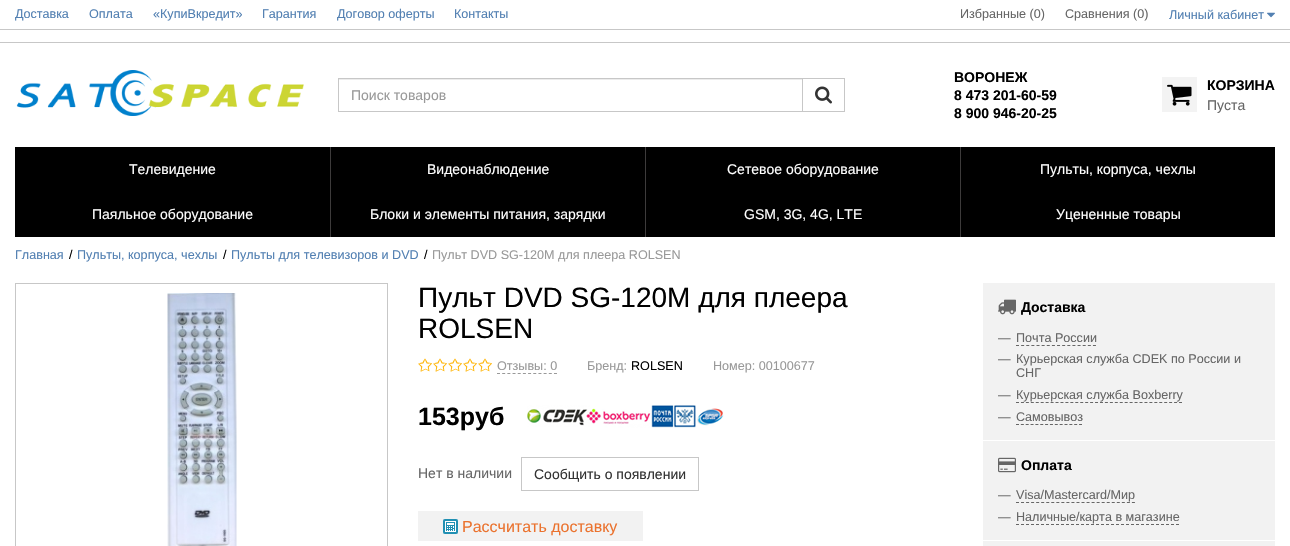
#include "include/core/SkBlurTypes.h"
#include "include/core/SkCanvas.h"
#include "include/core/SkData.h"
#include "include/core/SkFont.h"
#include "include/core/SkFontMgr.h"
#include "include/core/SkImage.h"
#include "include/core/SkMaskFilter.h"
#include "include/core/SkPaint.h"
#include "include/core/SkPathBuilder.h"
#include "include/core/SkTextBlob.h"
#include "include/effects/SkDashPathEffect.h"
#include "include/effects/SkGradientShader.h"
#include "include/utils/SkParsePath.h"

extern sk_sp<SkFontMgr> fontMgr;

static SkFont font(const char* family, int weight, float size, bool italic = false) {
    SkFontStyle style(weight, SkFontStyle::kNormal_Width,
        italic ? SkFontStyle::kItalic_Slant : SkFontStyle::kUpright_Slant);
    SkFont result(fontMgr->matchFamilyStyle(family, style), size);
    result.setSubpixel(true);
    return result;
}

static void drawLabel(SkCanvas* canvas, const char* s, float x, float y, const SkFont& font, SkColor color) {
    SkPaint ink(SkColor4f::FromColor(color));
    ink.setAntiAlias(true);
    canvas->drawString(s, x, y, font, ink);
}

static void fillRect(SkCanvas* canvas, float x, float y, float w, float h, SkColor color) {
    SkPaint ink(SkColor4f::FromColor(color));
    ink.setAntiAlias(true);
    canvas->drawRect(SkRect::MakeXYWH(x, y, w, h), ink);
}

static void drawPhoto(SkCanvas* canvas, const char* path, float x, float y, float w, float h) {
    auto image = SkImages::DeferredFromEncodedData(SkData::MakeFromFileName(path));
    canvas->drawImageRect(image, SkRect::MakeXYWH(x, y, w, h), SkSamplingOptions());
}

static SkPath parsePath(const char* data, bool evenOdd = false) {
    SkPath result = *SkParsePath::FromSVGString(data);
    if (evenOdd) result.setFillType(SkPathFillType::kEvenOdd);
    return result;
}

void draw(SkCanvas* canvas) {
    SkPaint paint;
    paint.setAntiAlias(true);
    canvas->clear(0xFFFFFFFF);
    fillRect(canvas, 0, 29, 1290, 1, 0xFFC7C7C7);
    SkFont font1 = font("Liberation Sans", 400, 12.6f);
    drawLabel(canvas, "Доставка", 15, 18, font1, 0xFF5280B2);
    drawLabel(canvas, "Оплата", 89, 18, font1, 0xFF5280B2);
    drawLabel(canvas, "«КупиВкредит»", 153, 18, font1, 0xFF5280B2);
    drawLabel(canvas, "Гарантия", 262, 18, font1, 0xFF5280B2);
    drawLabel(canvas, "Договор оферты", 337, 18, font1, 0xFF5280B2);
    drawLabel(canvas, "Контакты", 454, 18, font1, 0xFF5280B2);
    drawLabel(canvas, "Избранные (0)", 960, 18, font1, 0xFF666666);
    drawLabel(canvas, "Сравнения (0)", 1065, 18, font1, 0xFF666666);
    drawLabel(canvas, "Личный кабинет", 1169, 19, font1, 0xFF5280B2);
    drawPhoto(canvas, "assets/img1.png", 1267, 12, 8, 6);
    fillRect(canvas, 0, 42, 1290, 1, 0xFFC7C7C7);
    drawPhoto(canvas, "assets/img2.png", 16, 70, 288, 46);
    fillRect(canvas, 339, 79, 463, 1, 0xFFECECEC);
    paint.setStroke(true);
    paint.setStrokeWidth(1);
    paint.setColor(0xFFC7C7C7);
    canvas->drawRect(SkRect::MakeXYWH(338.5f, 78.5f, 464, 33), paint);
    SkFont font2 = font("Liberation Sans", 400, 14);
    drawLabel(canvas, "Поиск товаров", 351, 100, font2, 0xFF999999);
    canvas->drawRect(SkRect::MakeXYWH(802.5f, 78.5f, 42, 33), paint);
    drawPhoto(canvas, "assets/img3.png", 815, 86, 17, 18);
    SkFont font3 = font("Liberation Sans", 700, 14);
    drawLabel(canvas, "ВОРОНЕЖ", 954, 82, font3, 0xFF000000);
    drawLabel(canvas, "8 473 201-60-59", 954, 100, font3, 0xFF000000);
    drawLabel(canvas, "8 900 946-20-25", 954, 118, font3, 0xFF000000);
    fillRect(canvas, 1162, 77, 35, 35, 0xFFF3F3F3);
    drawPhoto(canvas, "assets/img4.png", 1167, 84, 25, 22);
    drawLabel(canvas, "КОРЗИНА", 1207, 90, font3, 0xFF000000);
    drawLabel(canvas, "Пуста", 1207, 110, font2, 0xFF666666);
    fillRect(canvas, 15, 147, 315, 90, 0xFF000000);
    drawLabel(canvas, "Телевидение", 129, 174, font2, 0xFFFFFFFF);
    fillRect(canvas, 331, 147, 314, 90, 0xFF000000);
    fillRect(canvas, 330, 147, 1, 90, 0xFF3D3B3B);
    drawLabel(canvas, "Видеонаблюдение", 427, 174, font2, 0xFFFFFFFF);
    fillRect(canvas, 646, 147, 314, 90, 0xFF000000);
    fillRect(canvas, 645, 147, 1, 90, 0xFF3D3B3B);
    drawLabel(canvas, "Сетевое оборудование", 727, 174, font2, 0xFFFFFFFF);
    fillRect(canvas, 961, 147, 314, 90, 0xFF000000);
    fillRect(canvas, 960, 147, 1, 90, 0xFF3D3B3B);
    drawLabel(canvas, "Пульты, корпуса, чехлы", 1040, 174, font2, 0xFFFFFFFF);
    drawLabel(canvas, "Паяльное оборудование", 92, 219, font2, 0xFFFFFFFF);
    drawLabel(canvas, "Блоки и элементы питания, зарядки", 370, 219, font2, 0xFFFFFFFF);
    drawLabel(canvas, "GSM, 3G, 4G, LTE", 744, 219, font2, 0xFFFFFFFF);
    drawLabel(canvas, "Уцененные товары", 1056, 219, font2, 0xFFFFFFFF);
    drawLabel(canvas, "Главная", 15, 259, font1, 0xFF5280B2);
    drawLabel(canvas, "/", 69, 259, font1, 0xFF000000);
    drawLabel(canvas, "Пульты, корпуса, чехлы", 77, 259, font1, 0xFF5280B2);
    drawLabel(canvas, "/", 223, 259, font1, 0xFF000000);
    drawLabel(canvas, "Пульты для телевизоров и DVD", 231, 259, font1, 0xFF5280B2);
    drawLabel(canvas, "/", 424, 259, font1, 0xFF000000);
    drawLabel(canvas, "Пульт DVD SG-120M для плеера ROLSEN", 432, 259, font1, 0xFF999999);
    canvas->drawRect(SkRect::MakeXYWH(15.5f, 283.5f, 372, 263), paint);
    drawPhoto(canvas, "assets/img5.png", 167, 293, 70, 253);
    SkFont font4 = font("Liberation Sans", 400, 28);
    drawLabel(canvas, "Пульт DVD SG-120M для плеера", 418, 307, font4, 0xFF000000);
    drawLabel(canvas, "ROLSEN", 418, 338, font4, 0xFF000000);
    drawPhoto(canvas, "assets/img6.png", 418, 358, 14, 14);
    drawPhoto(canvas, "assets/img6.png", 433, 358, 14, 14);
    drawPhoto(canvas, "assets/img6.png", 448, 358, 14, 14);
    drawPhoto(canvas, "assets/img6.png", 463, 358, 14, 14);
    drawPhoto(canvas, "assets/img6.png", 478, 358, 14, 14);
    drawLabel(canvas, "Отзывы: 0", 497, 370, font1, 0xFF999999);
    paint.setColor(0xFF999999);
    paint.setPathEffect(SkDashPathEffect::Make({{3, 2.18f}}, 0));
    canvas->drawPath(parsePath("M497 373.5H557"), paint);
    paint.setPathEffect(nullptr);
    drawLabel(canvas, "Бренд:", 587, 370, font1, 0xFF999999);
    drawLabel(canvas, "ROLSEN", 631, 370, font1, 0xFF000000);
    drawLabel(canvas, "Номер: 00100677", 713, 370, font1, 0xFF999999);
    SkFont font5 = font("Liberation Sans", 700, 25);
    drawLabel(canvas, "153руб", 418, 425, font5, 0xFF000000);
    drawPhoto(canvas, "assets/img7.png", 527, 405, 197, 23);
    drawLabel(canvas, "Нет в наличии", 418, 478, font2, 0xFF666666);
    paint.setColor(0xFFC7C7C7);
    canvas->drawRect(SkRect::MakeXYWH(521.5f, 457.5f, 177, 33), paint);
    drawLabel(canvas, "Сообщить о появлении", 534, 479, font2, 0xFF333333);
    fillRect(canvas, 418, 511, 225, 30, 0xFFF2F2F2);
    drawPhoto(canvas, "assets/img8.png", 443, 519, 15, 15);
    SkFont font6 = font("Liberation Sans", 400, 16);
    drawLabel(canvas, "Рассчитать доставку", 462, 532, font6, 0xFFEB722E);
    fillRect(canvas, 983, 283, 292, 157, 0xFFF2F2F2);
    drawPhoto(canvas, "assets/img9.png", 998, 299, 18, 16);
    drawLabel(canvas, "Доставка", 1021, 312, font3, 0xFF000000);
    drawLabel(canvas, "—", 998, 342, font1, 0xFF666666);
    drawLabel(canvas, "Почта России", 1016, 342, font1, 0xFF666666);
    paint.setColor(0xFF666666);
    paint.setPathEffect(SkDashPathEffect::Make({{3, 2.13f}}, 0));
    canvas->drawPath(parsePath("M1016 345.5H1096"), paint);
    paint.setPathEffect(nullptr);
    drawLabel(canvas, "—", 998, 363, font1, 0xFF666666);
    drawLabel(canvas, "Курьерская служба CDEK по России и", 1016, 363, font1, 0xFF666666);
    drawLabel(canvas, "СНГ", 1016, 377, font1, 0xFF666666);
    drawLabel(canvas, "—", 998, 399, font1, 0xFF666666);
    drawLabel(canvas, "Курьерская служба Boxberry", 1016, 399, font1, 0xFF666666);
    paint.setPathEffect(SkDashPathEffect::Make({{3, 1.94f}}, 0));
    canvas->drawPath(parsePath("M1016 402.5H1182"), paint);
    paint.setPathEffect(nullptr);
    drawLabel(canvas, "—", 998, 421, font1, 0xFF666666);
    drawLabel(canvas, "Самовывоз", 1016, 421, font1, 0xFF666666);
    paint.setPathEffect(SkDashPathEffect::Make({{3, 1.85f}}, 0));
    canvas->drawPath(parsePath("M1016 424.5H1082"), paint);
    paint.setPathEffect(nullptr);
    fillRect(canvas, 983, 441, 292, 99, 0xFFF2F2F2);
    drawPhoto(canvas, "assets/img10.png", 998, 457, 18, 16);
    drawLabel(canvas, "Оплата", 1021, 470, font3, 0xFF000000);
    drawLabel(canvas, "—", 998, 499, font1, 0xFF666666);
    drawLabel(canvas, "Visa/Mastercard/Мир", 1016, 499, font1, 0xFF666666);
    paint.setPathEffect(SkDashPathEffect::Make({{3, 2.04f}}, 0));
    canvas->drawPath(parsePath("M1016 502.5H1135"), paint);
    paint.setPathEffect(nullptr);
    drawLabel(canvas, "—", 998, 521, font1, 0xFF666666);
    drawLabel(canvas, "Наличные/карта в магазине", 1016, 521, font1, 0xFF666666);
    paint.setPathEffect(SkDashPathEffect::Make({{3, 2}}, 0));
    canvas->drawPath(parsePath("M1016 524.5H1179"), paint);
    paint.setPathEffect(nullptr);
    fillRect(canvas, 983, 541, 292, 5, 0xFFF2F2F2);
}
